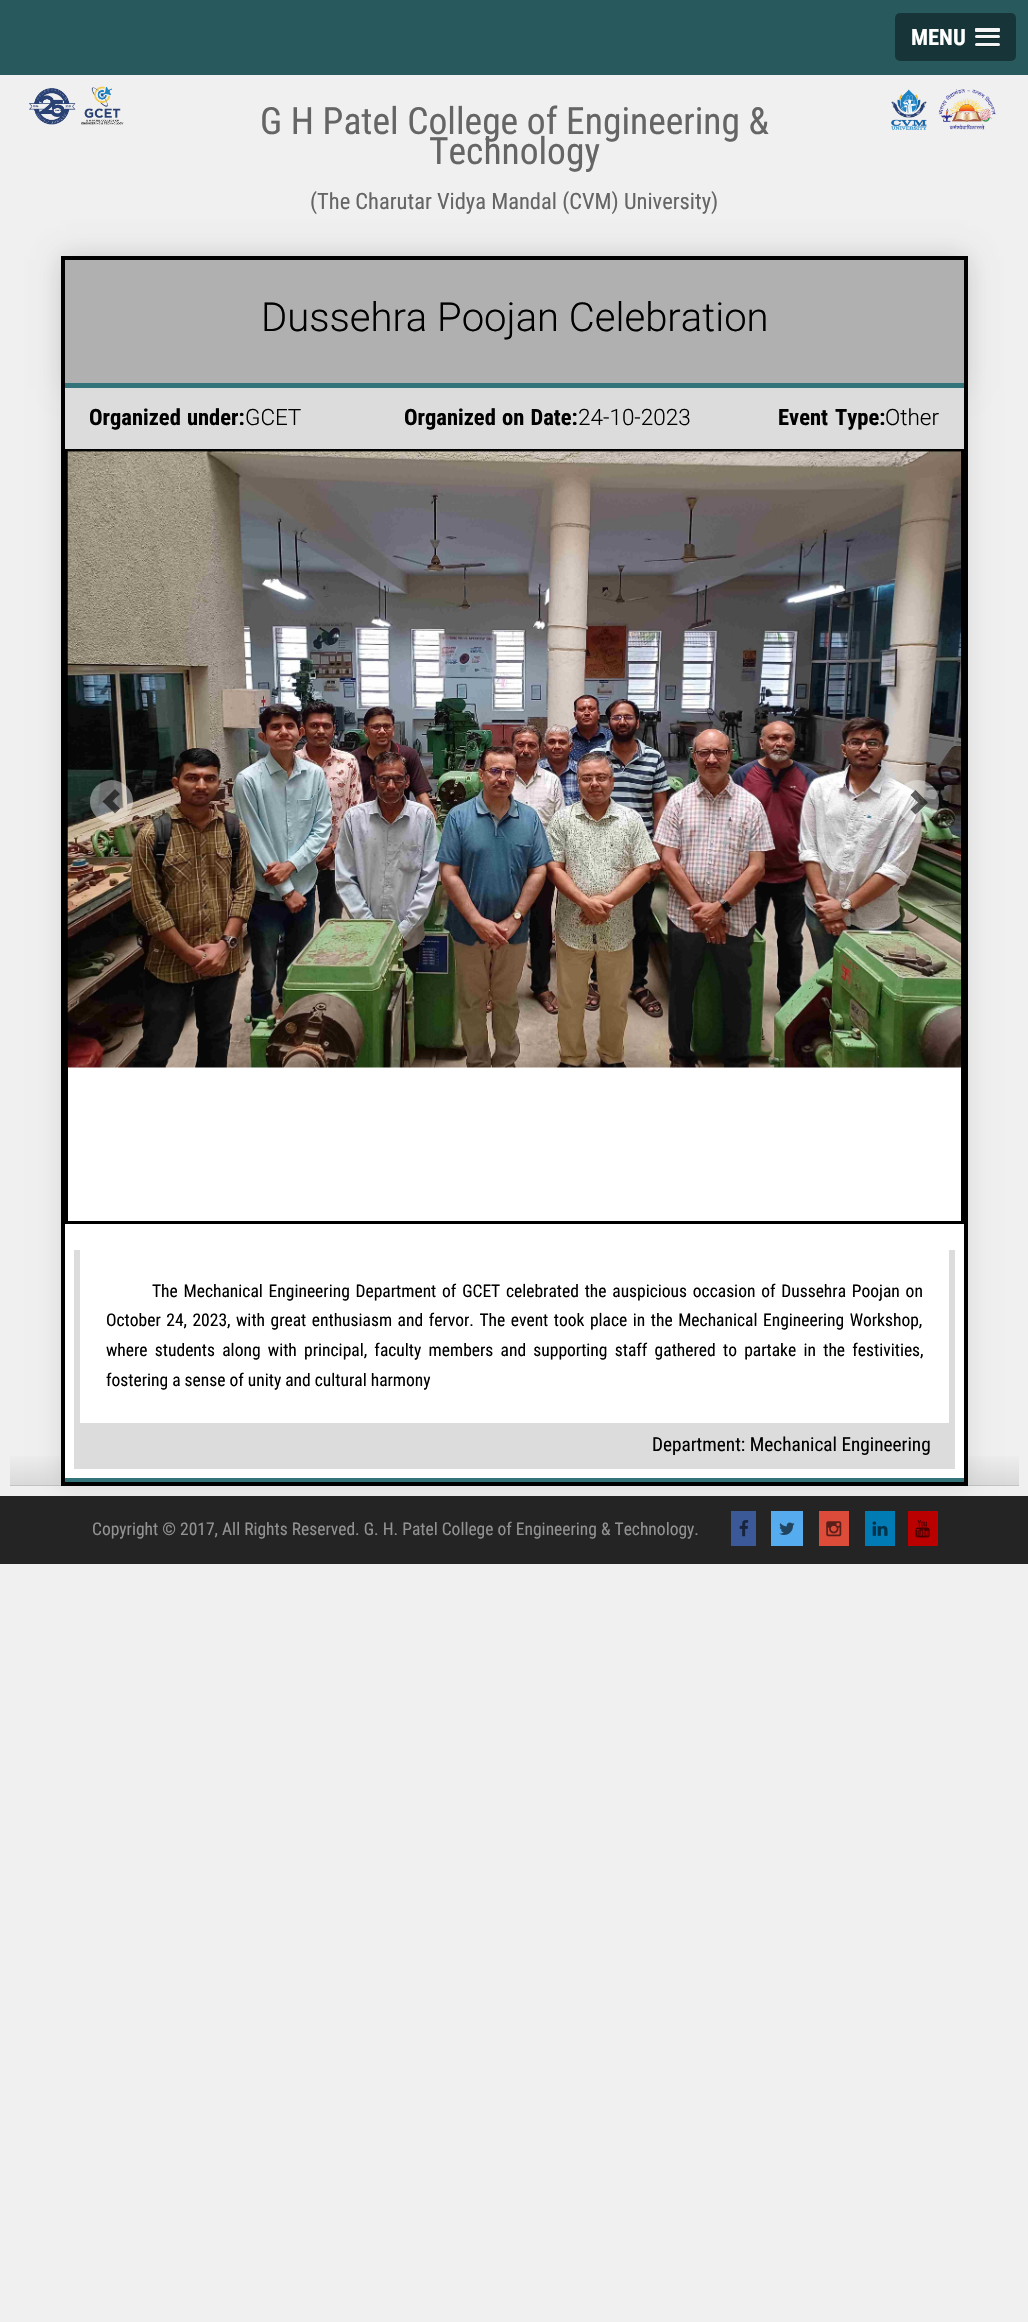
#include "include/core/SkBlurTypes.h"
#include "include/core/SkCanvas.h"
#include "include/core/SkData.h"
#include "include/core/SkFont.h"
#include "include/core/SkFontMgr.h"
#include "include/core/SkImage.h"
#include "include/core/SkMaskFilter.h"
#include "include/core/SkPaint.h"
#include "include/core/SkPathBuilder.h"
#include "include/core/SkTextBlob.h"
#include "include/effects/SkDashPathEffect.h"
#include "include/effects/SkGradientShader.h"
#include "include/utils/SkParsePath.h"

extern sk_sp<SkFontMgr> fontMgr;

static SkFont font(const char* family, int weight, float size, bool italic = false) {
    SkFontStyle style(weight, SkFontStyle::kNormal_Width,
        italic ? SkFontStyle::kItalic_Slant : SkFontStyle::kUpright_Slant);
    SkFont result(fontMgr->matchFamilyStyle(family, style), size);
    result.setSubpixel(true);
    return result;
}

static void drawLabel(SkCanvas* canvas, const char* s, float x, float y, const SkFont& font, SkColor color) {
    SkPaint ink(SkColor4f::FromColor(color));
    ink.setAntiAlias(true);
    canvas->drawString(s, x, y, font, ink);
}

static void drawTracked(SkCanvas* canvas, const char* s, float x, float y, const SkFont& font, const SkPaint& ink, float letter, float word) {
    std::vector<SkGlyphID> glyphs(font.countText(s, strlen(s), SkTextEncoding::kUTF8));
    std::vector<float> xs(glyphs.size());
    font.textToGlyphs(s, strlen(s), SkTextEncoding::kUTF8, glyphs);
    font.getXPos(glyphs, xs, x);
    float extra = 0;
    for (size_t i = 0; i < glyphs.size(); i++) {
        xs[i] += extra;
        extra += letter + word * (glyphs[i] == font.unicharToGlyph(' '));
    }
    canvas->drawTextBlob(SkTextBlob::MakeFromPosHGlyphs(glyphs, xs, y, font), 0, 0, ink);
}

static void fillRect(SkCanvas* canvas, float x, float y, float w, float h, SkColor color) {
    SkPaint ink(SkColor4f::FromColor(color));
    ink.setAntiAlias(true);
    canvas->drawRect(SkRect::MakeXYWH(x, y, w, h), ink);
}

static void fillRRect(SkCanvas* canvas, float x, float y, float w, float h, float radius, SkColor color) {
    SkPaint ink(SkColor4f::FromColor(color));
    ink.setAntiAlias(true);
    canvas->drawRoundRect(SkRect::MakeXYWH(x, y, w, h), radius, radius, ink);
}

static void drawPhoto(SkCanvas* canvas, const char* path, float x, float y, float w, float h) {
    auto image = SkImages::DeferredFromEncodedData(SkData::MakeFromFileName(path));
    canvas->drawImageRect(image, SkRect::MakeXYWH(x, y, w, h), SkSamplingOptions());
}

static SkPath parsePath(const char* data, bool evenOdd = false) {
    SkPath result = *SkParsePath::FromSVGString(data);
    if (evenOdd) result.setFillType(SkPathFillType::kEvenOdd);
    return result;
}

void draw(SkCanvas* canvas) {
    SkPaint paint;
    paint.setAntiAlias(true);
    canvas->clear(0xFFF0F0F0);
    fillRect(canvas, 0, 0, 1028, 75, 0xFF27595D);
    fillRRect(canvas, 895, 13, 121, 48, 5, 0xFF173538);
    SkFont font1 = font("Roboto Condensed", 700, 22.5f);
    drawLabel(canvas, "MENU", 911, 45, font1, 0xFFFFFFFF);
    paint.setColor(0xFF11282A);
    canvas->drawPath(parsePath("M975 30C975 34 975 33 980 33H995C1000 33 1000 34 1000 30C1000 30.5 999.5 31 999 31H976C975.5 31 975 30.5 975 30Z"), paint);
    fillRRect(canvas, 975, 28, 25, 4, 1, 0xFFF5F5F5);
    canvas->drawPath(parsePath("M975 37C974 39.5 979.5 39 980 39H995C995.5 39 1001 39.5 1000 37L999 37.5H976Z"), paint);
    fillRRect(canvas, 975, 35, 25, 3, 1.5f, 0xFFF5F5F5);
    canvas->drawPath(parsePath("M975.5 44.5C973 47.5 980 47 980 47H995C995 47 1002 47.5 999.5 44.5L999 45C996.5 45 976 45.5 975.5 44.5Z"), paint);
    fillRRect(canvas, 975, 43, 25, 3, 1.5f, 0xFFF5F5F5);
    drawPhoto(canvas, "assets/img1.png", 29, 86, 95, 39);
    SkFont font2 = font("Roboto Condensed", 400, 37.5f);
    drawLabel(canvas, "G H Patel College of Engineering &", 260, 134, font2, 0xFF656565);
    drawLabel(canvas, "Technology", 429, 164, font2, 0xFF656565);
    SkFont font3 = font("Roboto Condensed", 400, 22.5f);
    drawLabel(canvas, "(The Charutar Vidya Mandal (CVM) University)", 310, 209, font3, 0xFF656565);
    drawPhoto(canvas, "assets/img2.png", 891, 89, 105, 41);
    {
        const SkColor colors[] = {0xFFD9D9D9, 0xFFF2F2F2, 0xFFF2F2F2};
        const float stops[] = {0, 0.03f, 1};
        const SkPoint ends[] = {{514, 1486}, {514, 256}};
        paint.setShader(SkGradientShader::MakeLinear(ends, colors, stops, 3, SkTileMode::kClamp));
        paint.setAlpha(255);
    }
    canvas->drawRect(SkRect::MakeXYWH(10, 1456, 1009, 29), paint);
    fillRect(canvas, 10, 1485, 1009, 1, 0xFFC3C3C3);
    fillRect(canvas, 0, 1496, 1028, 68, 0xFF242424);
    fillRect(canvas, 731, 1511, 25, 35, 0xFF3B5998);
    drawPhoto(canvas, "assets/img4.png", 739, 1520, 10, 17);
    fillRect(canvas, 771, 1511, 32, 35, 0xFF55ACEE);
    drawPhoto(canvas, "assets/img5.png", 779, 1522, 16, 13);
    fillRect(canvas, 819, 1511, 30, 35, 0xFFDD4B39);
    drawPhoto(canvas, "assets/img6.png", 826, 1521, 16, 16);
    fillRect(canvas, 865, 1511, 30, 35, 0xFF007BB5);
    drawPhoto(canvas, "assets/img7.png", 872, 1521, 16, 15);
    fillRect(canvas, 908, 1511, 30, 35, 0xFFBB0000);
    drawPhoto(canvas, "assets/img8.png", 915, 1520, 15, 18);
    paint.setShader(nullptr);
    paint.setColor(0x1A000000);
    paint.setMaskFilter(SkMaskFilter::MakeBlur(kNormal_SkBlurStyle, 12.5f));
    canvas->drawRect(SkRect::MakeXYWH(61, 256, 907, 1230), paint);
    paint.setMaskFilter(nullptr);
    fillRect(canvas, 65, 1067, 899, 411, 0xFFFFFFFF);
    fillRect(canvas, 65, 1478, 899, 4, 0xFF33747A);
    paint.setStroke(true);
    paint.setStrokeWidth(4);
    paint.setColor(0xFF000000);
    canvas->drawRect(SkRect::MakeXYWH(63, 258, 903, 1226), paint);
    paint.setStroke(false);
    paint.setColor(0x1A000000);
    paint.setMaskFilter(SkMaskFilter::MakeBlur(kNormal_SkBlurStyle, 12.5f));
    canvas->drawRect(SkRect::MakeXYWH(65, 260, 899, 128), paint);
    paint.setMaskFilter(nullptr);
    fillRect(canvas, 65, 260, 899, 123, 0xFFB0B0B0);
    fillRect(canvas, 65, 383, 899, 5, 0xFF33747A);
    SkFont font4 = font("Roboto", 300, 40);
    drawLabel(canvas, "Dussehra Poojan Celebration", 261, 331, font4, 0xFF000000);
    fillRect(canvas, 65, 388, 899, 61, 0xFFDCDCDC);
    paint.setColor(0xFF000000);
    drawTracked(canvas, "Organized under:", 89, 425, font1, paint, 0, 1);
    SkFont font5 = font("Roboto", 300, 22.5f);
    drawLabel(canvas, "GCET", 245, 425, font5, 0xFF000000);
    drawTracked(canvas, "Organized on Date:", 404, 425, font1, paint, 0, 1);
    drawLabel(canvas, "24-10-2023", 578, 425, font5, 0xFF000000);
    drawTracked(canvas, "Event Type:", 778, 425, font1, paint, 0, 2);
    drawLabel(canvas, "Other", 885, 425, font5, 0xFF000000);
    paint.setStroke(true);
    paint.setStrokeWidth(3);
    canvas->drawRect(SkRect::MakeXYWH(66.5f, 450.5f, 896, 772), paint);
    drawPhoto(canvas, "assets/img3.png", 67, 451, 895, 617);
    paint.setStroke(false);
    paint.setColor(0x66FFFFFF);
    canvas->drawCircle(111.5f, 801.5f, 21.5f, paint);
    paint.setColor(0x99000000);
    canvas->drawPath(parsePath("M102.5 801.5L115 813.5L120 808.5L112.5 801L120 794L115 789Z"), paint);
    paint.setColor(0x66FFFFFF);
    canvas->drawCircle(917.5f, 801.5f, 21.5f, paint);
    paint.setColor(0x99000000);
    canvas->drawPath(parsePath("M910.5 809.5L918 802.5L910.5 795L915.5 790L928 802.5L915.5 814.5Z"), paint);
    fillRect(canvas, 949, 1250, 6, 173, 0xFFDCDCDC);
    fillRect(canvas, 74, 1250, 6, 173, 0xFFDCDCDC);
    SkFont font6 = font("Roboto Condensed", 400, 17.5f);
    paint.setColor(0xFF000000);
    drawTracked(canvas, "The Mechanical Engineering Department of GCET celebrated the auspicious occasion of Dussehra Poojan on", 152, 1297, font6, paint, 0, 1.75f);
    drawTracked(canvas, "October 24, 2023, with great enthusiasm and fervor. The event took place in the Mechanical Engineering Workshop,", 106, 1326, font6, paint, 0, 1.5f);
    drawTracked(canvas, "where students along with principal, faculty members and supporting staff gathered to partake in the festivities,", 106, 1356, font6, paint, 0, 3.25f);
    drawLabel(canvas, "fostering a sense of unity and cultural harmony", 106, 1386, font6, 0xFF000000);
    fillRect(canvas, 74, 1423, 881, 46, 0xFFDCDCDC);
    SkFont font7 = font("Roboto Condensed", 400, 19.25f);
    drawLabel(canvas, "Department: Mechanical Engineering", 652, 1451, font7, 0xFF000000);
    drawLabel(canvas, "Copyright © 2017, All Rights Reserved. G. H. Patel College of Engineering & Technology.", 92, 1535, font6, 0xFF929292);
}
